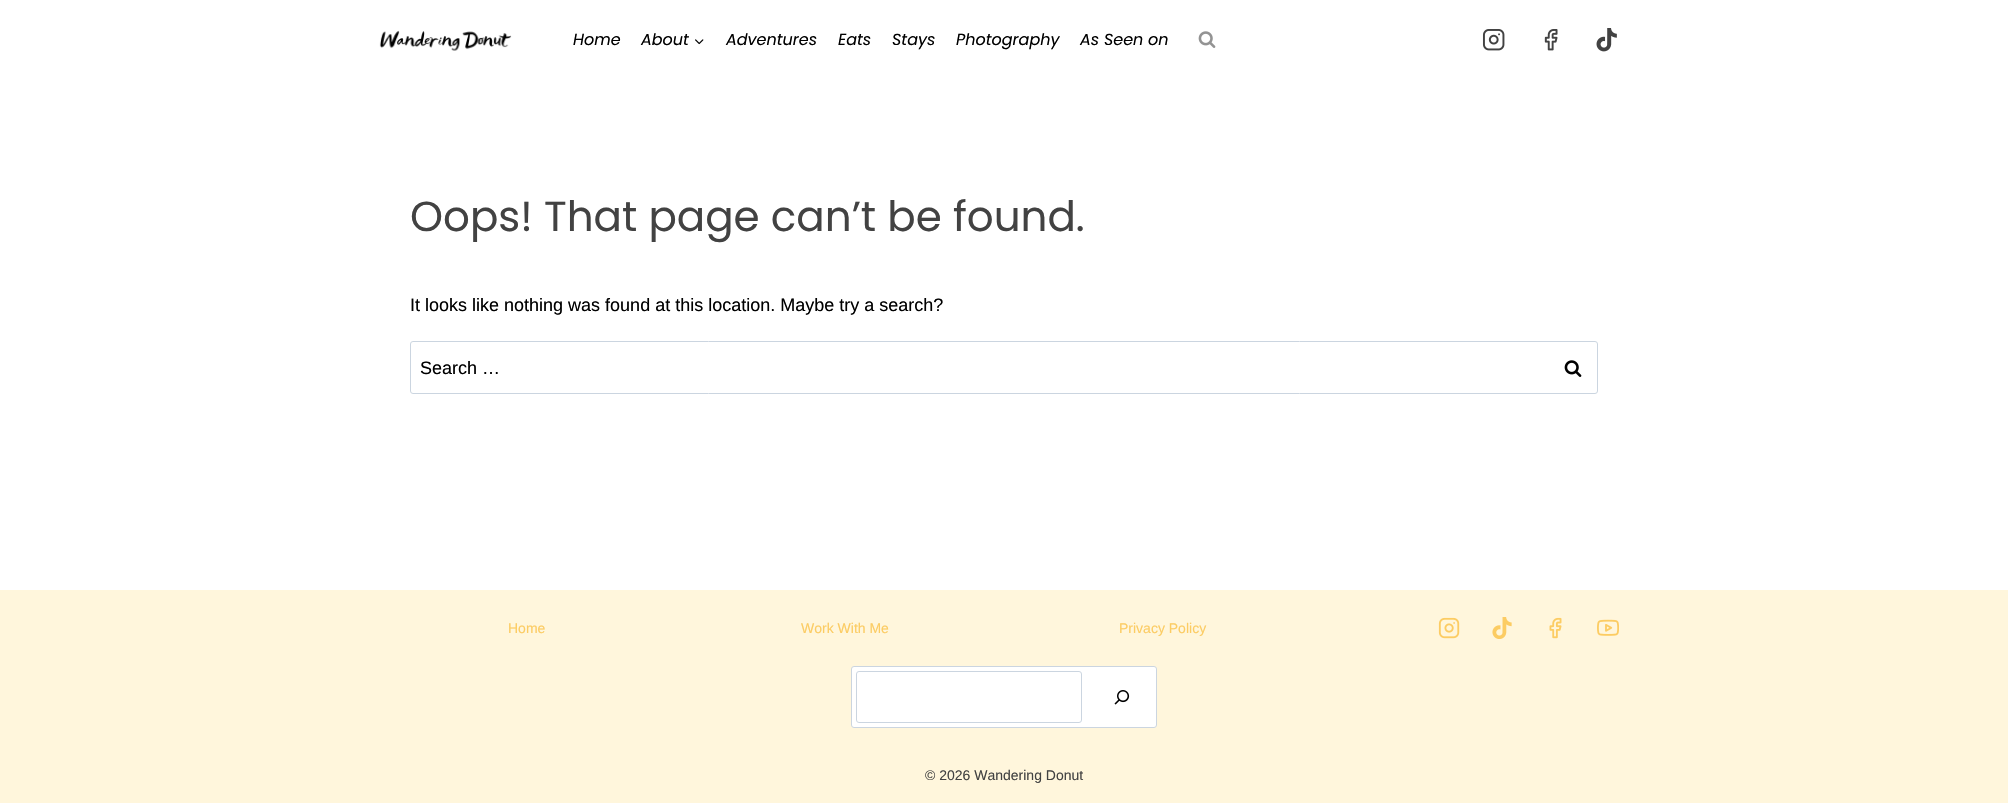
#include "include/core/SkBlurTypes.h"
#include "include/core/SkCanvas.h"
#include "include/core/SkData.h"
#include "include/core/SkFont.h"
#include "include/core/SkFontMgr.h"
#include "include/core/SkImage.h"
#include "include/core/SkMaskFilter.h"
#include "include/core/SkPaint.h"
#include "include/core/SkPathBuilder.h"
#include "include/core/SkTextBlob.h"
#include "include/effects/SkDashPathEffect.h"
#include "include/effects/SkGradientShader.h"
#include "include/utils/SkParsePath.h"

extern sk_sp<SkFontMgr> fontMgr;

static SkFont font(const char* family, int weight, float size, bool italic = false) {
    SkFontStyle style(weight, SkFontStyle::kNormal_Width,
        italic ? SkFontStyle::kItalic_Slant : SkFontStyle::kUpright_Slant);
    SkFont result(fontMgr->matchFamilyStyle(family, style), size);
    result.setSubpixel(true);
    return result;
}

static void drawLabel(SkCanvas* canvas, const char* s, float x, float y, const SkFont& font, SkColor color) {
    SkPaint ink(SkColor4f::FromColor(color));
    ink.setAntiAlias(true);
    canvas->drawString(s, x, y, font, ink);
}

static void fillRect(SkCanvas* canvas, float x, float y, float w, float h, SkColor color) {
    SkPaint ink(SkColor4f::FromColor(color));
    ink.setAntiAlias(true);
    canvas->drawRect(SkRect::MakeXYWH(x, y, w, h), ink);
}

static void drawPhoto(SkCanvas* canvas, const char* path, float x, float y, float w, float h) {
    auto image = SkImages::DeferredFromEncodedData(SkData::MakeFromFileName(path));
    canvas->drawImageRect(image, SkRect::MakeXYWH(x, y, w, h), SkSamplingOptions());
}

void draw(SkCanvas* canvas) {
    SkPaint paint;
    paint.setAntiAlias(true);
    canvas->clear(0xFFFFFFFF);
    drawPhoto(canvas, "assets/img1.png", 379, 30, 133, 21);
    SkFont font1 = font("Poppins", 400, 16, true);
    drawLabel(canvas, "Home", 573, 45, font1, 0xFF000000);
    drawLabel(canvas, "About", 641, 45, font1, 0xFF000000);
    drawPhoto(canvas, "assets/img2.png", 695, 39, 9, 6);
    drawLabel(canvas, "Adventures", 726, 45, font1, 0xFF000000);
    drawLabel(canvas, "Eats", 838, 45, font1, 0xFF000000);
    drawLabel(canvas, "Stays", 892, 45, font1, 0xFF000000);
    drawLabel(canvas, "Photography", 956, 45, font1, 0xFF000000);
    drawLabel(canvas, "As Seen on", 1080, 45, font1, 0xFF000000);
    drawPhoto(canvas, "assets/img3.png", 1198, 31, 18, 17);
    drawPhoto(canvas, "assets/img4.png", 1482, 29, 23, 22);
    drawPhoto(canvas, "assets/img5.png", 1544, 29, 14, 22);
    drawPhoto(canvas, "assets/img6.png", 1596, 28, 21, 24);
    SkFont font2 = font("Poppins", 400, 42);
    drawLabel(canvas, "Oops! That page can’t be found.", 410, 231, font2, 0xFF424242);
    SkFont font3 = font("Liberation Sans", 400, 18);
    drawLabel(canvas, "It looks like nothing was found at this location. Maybe try a search?", 410, 311, font3, 0xFF000000);
    paint.setStroke(true);
    paint.setStrokeWidth(1);
    paint.setColor(0xFFCBD5E0);
    canvas->drawRoundRect(SkRect::MakeXYWH(410.5f, 341.5f, 1187, 52), 2.5f, 2.5f, paint);
    drawLabel(canvas, "Search …", 420, 374, font3, 0xFF000000);
    drawPhoto(canvas, "assets/img7.png", 1564, 360, 18, 17);
    fillRect(canvas, 0, 590, 2008, 213, 0xFFFFF6DC);
    SkFont font4 = font("Liberation Sans", 400, 14);
    drawLabel(canvas, "Home", 508, 633, font4, 0xFFFCCC63);
    drawLabel(canvas, "Work With Me", 801, 633, font4, 0xFFFCCC63);
    drawLabel(canvas, "Privacy Policy", 1119, 633, font4, 0xFFFCCC63);
    drawPhoto(canvas, "assets/img8.png", 1438, 617, 22, 22);
    drawPhoto(canvas, "assets/img9.png", 1492, 617, 20, 22);
    drawPhoto(canvas, "assets/img10.png", 1549, 617, 13, 22);
    drawPhoto(canvas, "assets/img11.png", 1597, 619, 22, 17);
    paint.setStroke(false);
    paint.setColor(0xFFFFFFFF);
    canvas->drawRoundRect(SkRect::MakeXYWH(851.5f, 666.5f, 305, 61), 2.5f, 2.5f, paint);
    paint.setStroke(true);
    paint.setColor(0xFFCBD5E0);
    canvas->drawRoundRect(SkRect::MakeXYWH(851.5f, 666.5f, 305, 61), 2.5f, 2.5f, paint);
    canvas->drawRoundRect(SkRect::MakeXYWH(856.5f, 671.5f, 225, 51), 2.5f, 2.5f, paint);
    drawPhoto(canvas, "assets/img12.png", 1114, 690, 16, 15);
    drawLabel(canvas, "© 2026 Wandering Donut", 925, 780, font4, 0xFF424242);
}
